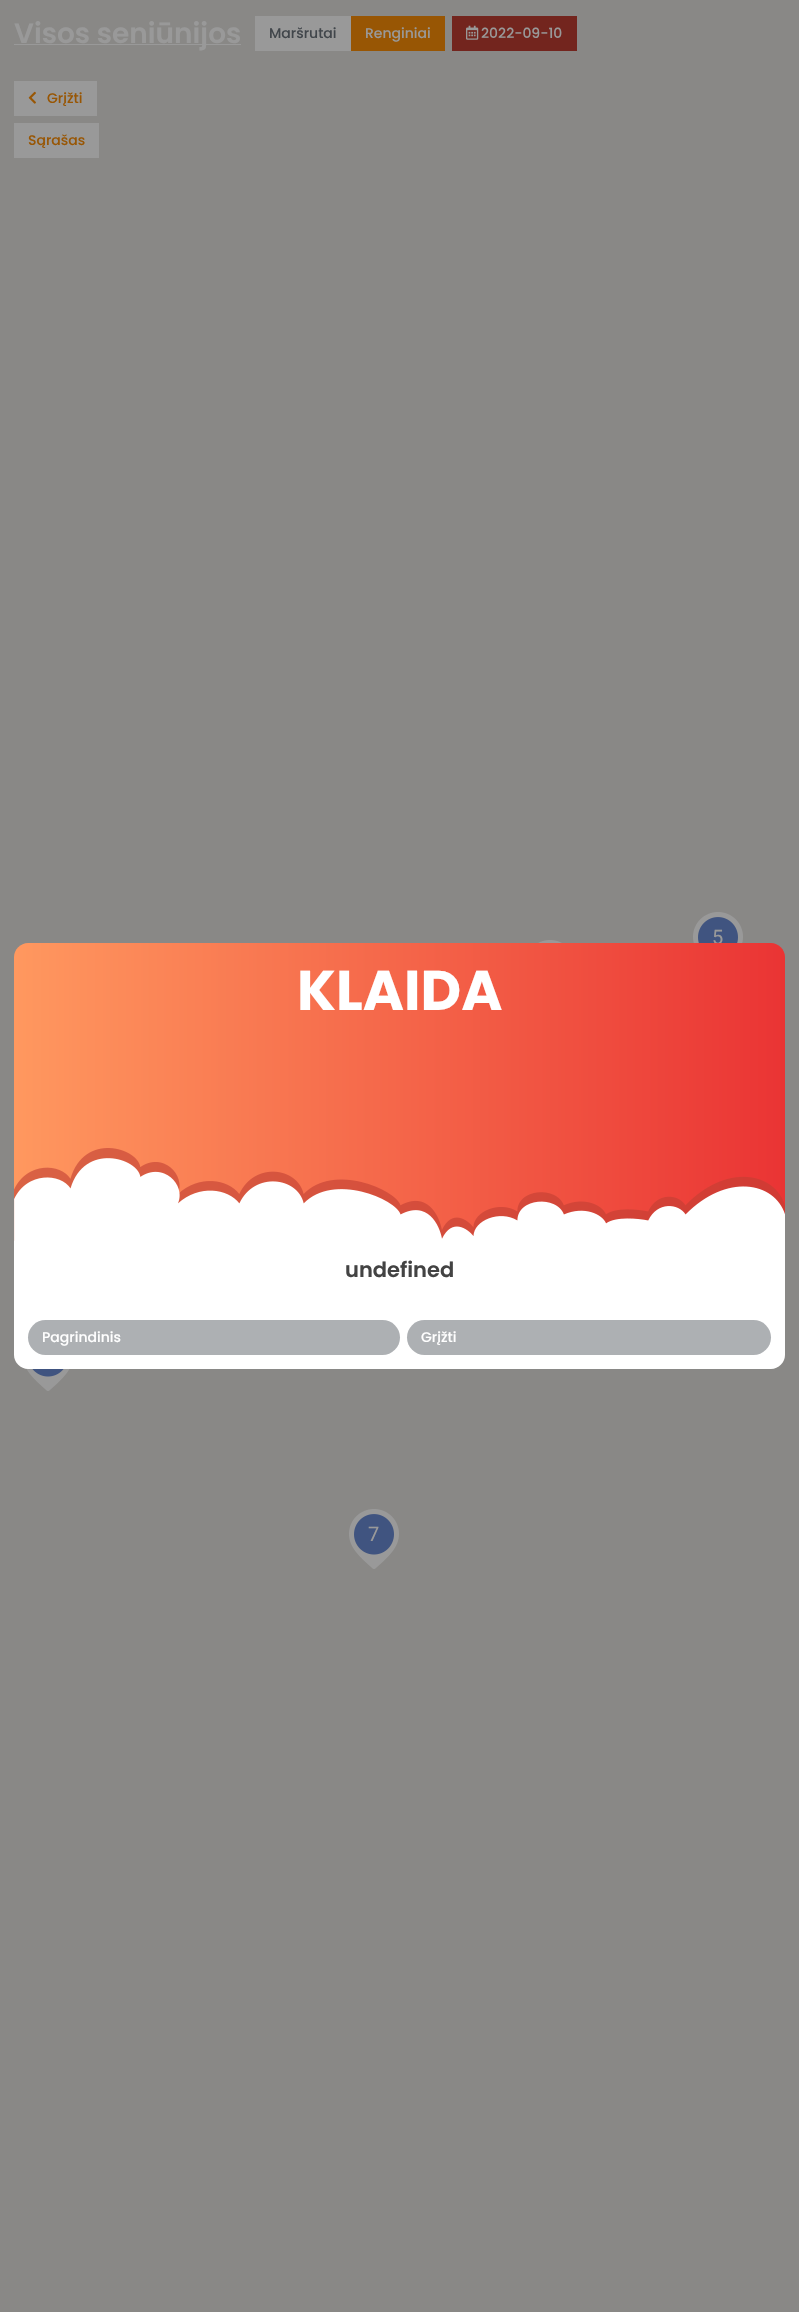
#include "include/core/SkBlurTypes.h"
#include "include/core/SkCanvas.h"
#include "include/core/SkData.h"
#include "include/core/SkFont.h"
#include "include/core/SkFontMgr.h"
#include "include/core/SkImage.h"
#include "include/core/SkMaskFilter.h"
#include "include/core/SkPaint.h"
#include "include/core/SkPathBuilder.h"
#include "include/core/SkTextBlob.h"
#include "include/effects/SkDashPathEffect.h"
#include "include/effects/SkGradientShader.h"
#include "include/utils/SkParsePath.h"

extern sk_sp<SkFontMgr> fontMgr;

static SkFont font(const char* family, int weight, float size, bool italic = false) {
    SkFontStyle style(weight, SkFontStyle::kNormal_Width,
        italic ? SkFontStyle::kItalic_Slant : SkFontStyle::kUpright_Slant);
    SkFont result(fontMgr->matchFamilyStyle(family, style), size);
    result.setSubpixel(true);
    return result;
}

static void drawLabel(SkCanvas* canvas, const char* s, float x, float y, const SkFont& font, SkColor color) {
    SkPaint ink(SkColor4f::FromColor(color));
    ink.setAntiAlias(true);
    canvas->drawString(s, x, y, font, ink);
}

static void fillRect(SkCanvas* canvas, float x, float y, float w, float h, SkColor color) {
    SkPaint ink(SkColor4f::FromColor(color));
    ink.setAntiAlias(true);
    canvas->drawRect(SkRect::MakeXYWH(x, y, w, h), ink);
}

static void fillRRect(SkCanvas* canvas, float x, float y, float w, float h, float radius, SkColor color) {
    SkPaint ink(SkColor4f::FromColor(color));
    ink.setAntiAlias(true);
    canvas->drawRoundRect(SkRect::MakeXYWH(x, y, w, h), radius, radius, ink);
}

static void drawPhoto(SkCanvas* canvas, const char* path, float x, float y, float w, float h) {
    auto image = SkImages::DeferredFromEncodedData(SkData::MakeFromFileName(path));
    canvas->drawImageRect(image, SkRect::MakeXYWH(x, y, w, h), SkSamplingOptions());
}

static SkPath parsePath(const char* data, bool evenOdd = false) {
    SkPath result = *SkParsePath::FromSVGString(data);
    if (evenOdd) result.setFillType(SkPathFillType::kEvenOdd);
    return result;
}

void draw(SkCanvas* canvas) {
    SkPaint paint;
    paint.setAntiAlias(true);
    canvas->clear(0xFF898886);
    fillRect(canvas, 14, 44, 227, 1, 0xFF999999);
    SkFont font1 = font("Poppins", 600, 28);
    drawLabel(canvas, "Visos seniūnijos", 14, 43, font1, 0xFF999999);
    fillRect(canvas, 255, 16, 96, 35, 0xFF999999);
    SkFont font2 = font("Poppins", 500, 14);
    drawLabel(canvas, "Maršrutai", 269, 38, font2, 0xFF41464B);
    fillRect(canvas, 351, 16, 94, 35, 0xFF985604);
    drawLabel(canvas, "Renginiai", 365, 38, font2, 0xFF999999);
    fillRect(canvas, 452, 16, 125, 35, 0xFF73251E);
    drawPhoto(canvas, "assets/img1.png", 466, 25, 13, 15);
    drawLabel(canvas, "2022-09-10", 481, 38, font2, 0xFF999999);
    fillRect(canvas, 14, 81, 83, 35, 0xFF999999);
    drawPhoto(canvas, "assets/img2.png", 28, 91, 8, 13);
    drawLabel(canvas, "Grįžti", 47, 103, font2, 0xFF985604);
    fillRect(canvas, 14, 123, 85, 35, 0xFF999999);
    drawLabel(canvas, "Sąrašas", 28, 145, font2, 0xFF985604);
    drawPhoto(canvas, "assets/img3.png", 538, 940, 24, 3);
    drawPhoto(canvas, "assets/img4.png", 693, 912, 50, 31);
    SkFont font3 = font("Roboto", 400, 20);
    drawLabel(canvas, "5", 712, 944, font3, 0xFF999999);
    drawPhoto(canvas, "assets/img5.png", 26, 1368, 44, 23);
    drawPhoto(canvas, "assets/img6.png", 349, 1509, 50, 60);
    drawLabel(canvas, "7", 368, 1541, font3, 0xFF999999);
    {
        const SkColor colors[] = {0xFFFF985F, 0xFFEA3434};
        const float stops[] = {0, 1};
        const SkPoint ends[] = {{14, 1092}, {785, 1092}};
        paint.setShader(SkGradientShader::MakeLinear(ends, colors, stops, 2, SkTileMode::kClamp));
        paint.setAlpha(255);
    }
    canvas->drawPath(parsePath("M28 943H771C778.5 943 785 949.5 785 957V1240H14V957C14 949.5 20.5 943 28 943Z"), paint);
    SkFont font4 = font("Poppins", 700, 56);
    drawLabel(canvas, "KLAIDA", 297, 1010, font4, 0xFFFFFFFF);
    fillRect(canvas, 14, 1240, 771, 59, 0xFFFFFFFF);
    drawPhoto(canvas, "assets/img7.png", 14, 1148, 771, 93);
    SkFont font5 = font("Poppins", 600, 21);
    drawLabel(canvas, "undefined", 345, 1277, font5, 0xFF434343);
    paint.setShader(nullptr);
    paint.setColor(0xFFFFFFFF);
    canvas->drawPath(parsePath("M14 1299H785V1355C785 1362.5 778.5 1369 771 1369H28C20.5 1369 14 1362.5 14 1355Z"), paint);
    fillRRect(canvas, 28, 1320, 372, 35, 17.5f, 0xFFADB0B3);
    drawLabel(canvas, "Pagrindinis", 42, 1342, font2, 0xFFFFFFFF);
    fillRRect(canvas, 407, 1320, 364, 35, 17.5f, 0xFFADB0B3);
    drawLabel(canvas, "Grįžti", 421, 1342, font2, 0xFFFFFFFF);
}
